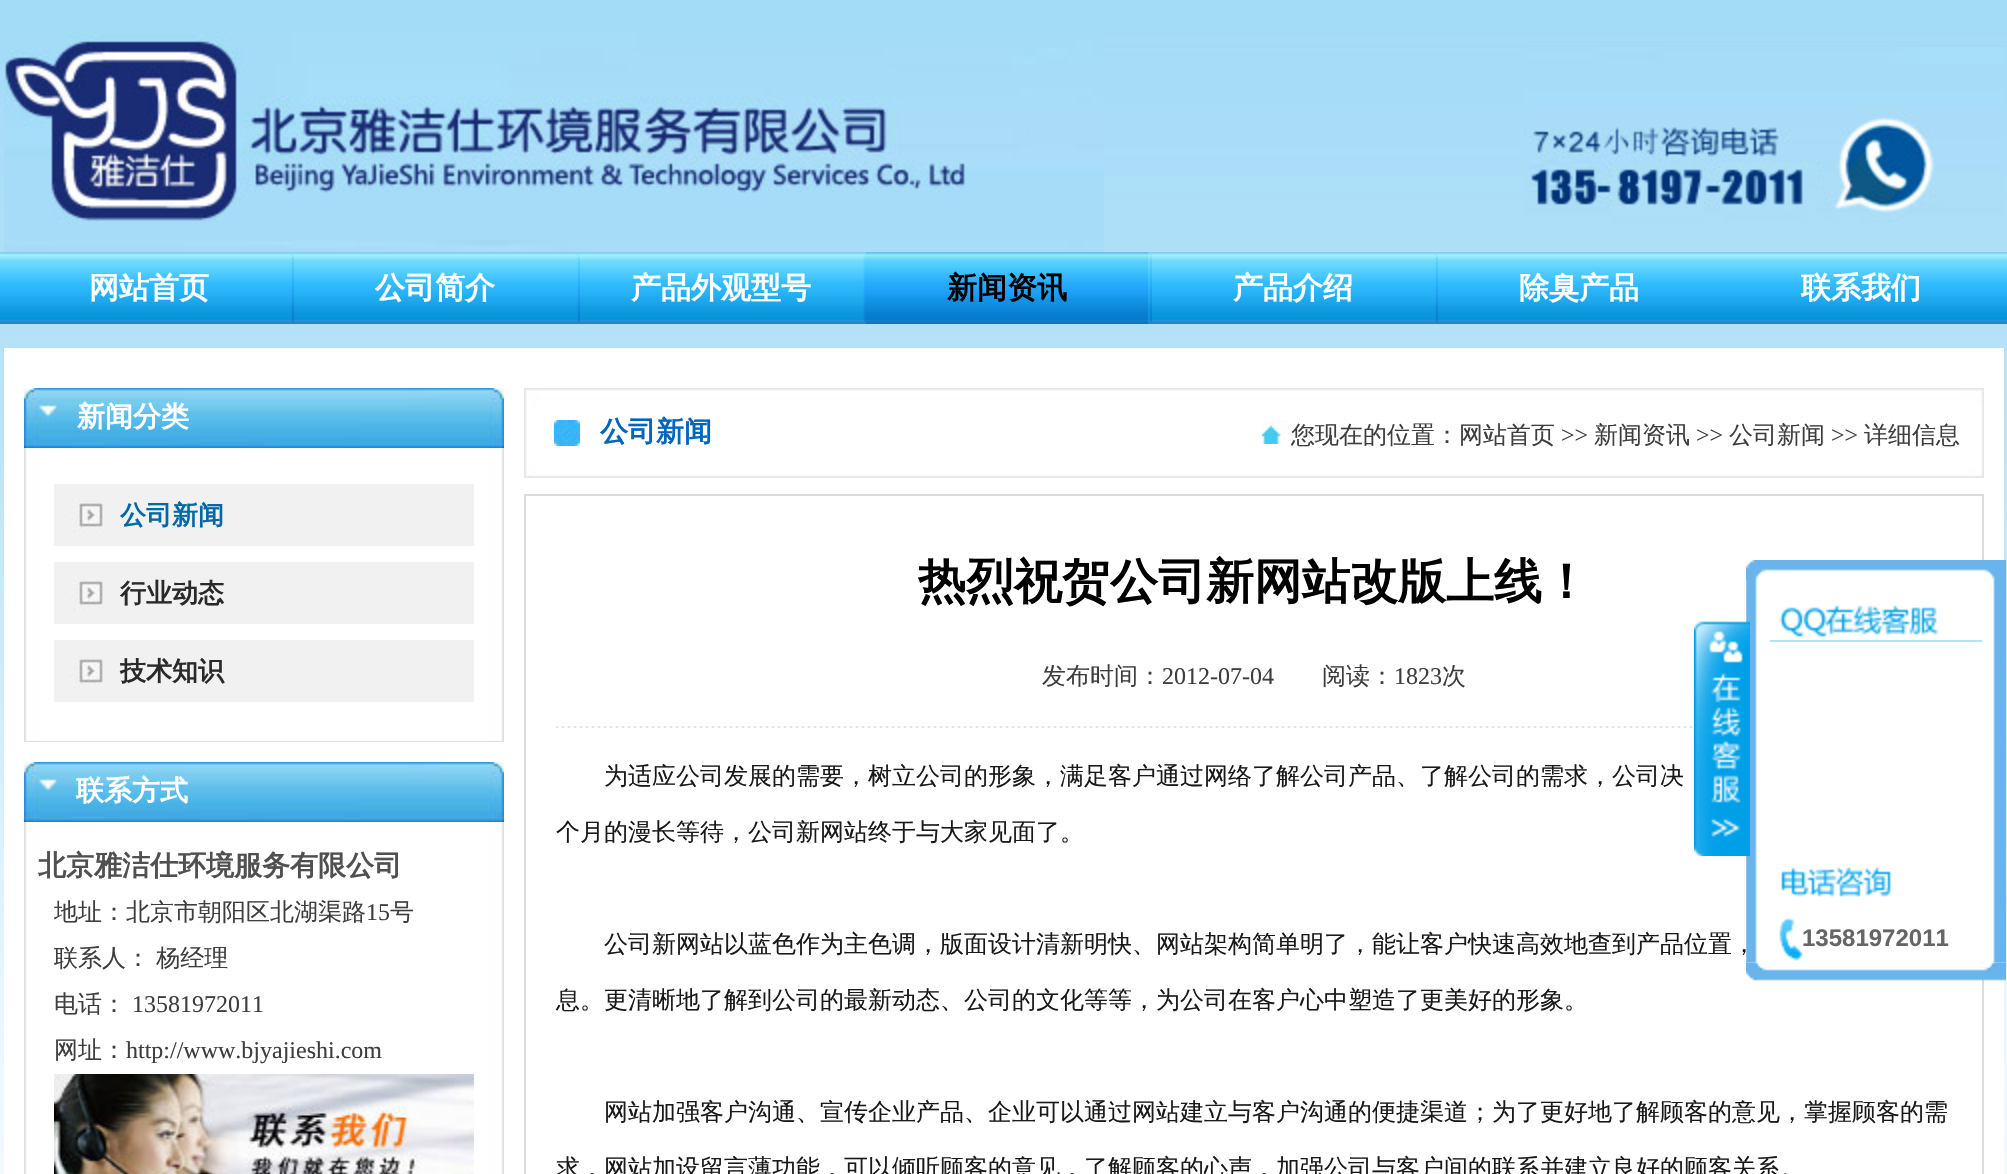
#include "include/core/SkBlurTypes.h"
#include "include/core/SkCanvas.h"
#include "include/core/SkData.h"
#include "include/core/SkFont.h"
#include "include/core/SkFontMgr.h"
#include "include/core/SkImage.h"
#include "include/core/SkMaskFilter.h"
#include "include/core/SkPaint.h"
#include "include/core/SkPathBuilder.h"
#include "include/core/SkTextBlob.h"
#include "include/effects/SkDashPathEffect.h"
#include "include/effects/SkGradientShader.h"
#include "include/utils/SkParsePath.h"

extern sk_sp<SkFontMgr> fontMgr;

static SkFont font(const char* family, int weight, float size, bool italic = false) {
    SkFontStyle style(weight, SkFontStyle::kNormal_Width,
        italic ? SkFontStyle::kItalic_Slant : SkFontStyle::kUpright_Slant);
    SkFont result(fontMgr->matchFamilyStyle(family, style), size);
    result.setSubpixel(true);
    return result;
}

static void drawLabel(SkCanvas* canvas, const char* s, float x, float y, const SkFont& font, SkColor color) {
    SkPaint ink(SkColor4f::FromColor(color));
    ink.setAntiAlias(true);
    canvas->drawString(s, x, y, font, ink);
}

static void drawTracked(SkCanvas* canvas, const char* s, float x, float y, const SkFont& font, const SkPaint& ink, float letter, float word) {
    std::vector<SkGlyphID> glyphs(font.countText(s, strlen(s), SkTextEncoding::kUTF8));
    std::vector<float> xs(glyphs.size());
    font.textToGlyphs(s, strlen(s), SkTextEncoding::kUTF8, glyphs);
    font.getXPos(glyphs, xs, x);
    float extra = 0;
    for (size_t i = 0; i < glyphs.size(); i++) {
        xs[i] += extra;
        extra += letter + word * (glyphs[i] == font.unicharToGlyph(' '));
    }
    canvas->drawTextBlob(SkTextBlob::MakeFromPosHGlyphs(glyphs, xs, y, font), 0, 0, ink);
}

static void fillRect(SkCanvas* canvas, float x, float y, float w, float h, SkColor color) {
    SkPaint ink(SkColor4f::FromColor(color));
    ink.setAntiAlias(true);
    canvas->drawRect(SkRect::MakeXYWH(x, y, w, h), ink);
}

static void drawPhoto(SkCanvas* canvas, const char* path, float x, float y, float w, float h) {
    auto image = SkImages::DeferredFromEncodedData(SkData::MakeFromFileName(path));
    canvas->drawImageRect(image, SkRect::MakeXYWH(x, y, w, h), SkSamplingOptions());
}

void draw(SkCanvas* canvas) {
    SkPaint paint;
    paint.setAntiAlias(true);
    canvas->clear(0xFFFFFFFF);
    drawPhoto(canvas, "assets/img1.png", 0, 0, 2007, 1174);
    drawPhoto(canvas, "assets/img2.png", 4, 32, 1100, 220);
    drawPhoto(canvas, "assets/img3.png", 1524, 47, 480, 177);
    drawPhoto(canvas, "assets/img4.png", 0, 252, 2007, 72);
    SkFont font1 = font("WenQuanYi Zen Hei", 700, 30);
    drawLabel(canvas, "网站首页", 89, 298, font1, 0xFFFFFFFF);
    drawPhoto(canvas, "assets/img5.png", 290, 252, 4, 72);
    drawLabel(canvas, "公司简介", 375, 298, font1, 0xFFFFFFFF);
    drawPhoto(canvas, "assets/img5.png", 576, 252, 4, 72);
    drawLabel(canvas, "产品外观型号", 631, 298, font1, 0xFFFFFFFF);
    drawPhoto(canvas, "assets/img5.png", 862, 252, 4, 72);
    drawPhoto(canvas, "assets/img6.png", 866, 252, 282, 72);
    drawLabel(canvas, "新闻资讯", 947, 298, font1, 0xFF000000);
    drawPhoto(canvas, "assets/img5.png", 1148, 252, 4, 72);
    drawLabel(canvas, "产品介绍", 1233, 298, font1, 0xFFFFFFFF);
    drawPhoto(canvas, "assets/img5.png", 1434, 252, 4, 72);
    drawLabel(canvas, "除臭产品", 1519, 298, font1, 0xFFFFFFFF);
    drawLabel(canvas, "联系我们", 1801, 298, font1, 0xFFFFFFFF);
    fillRect(canvas, 4, 348, 2000, 826, 0xFFFFFFFF);
    drawPhoto(canvas, "assets/img7.png", 24, 448, 480, 292);
    drawPhoto(canvas, "assets/img8.png", 24, 388, 480, 60);
    SkFont font2 = font("WenQuanYi Zen Hei", 700, 28);
    drawLabel(canvas, "新闻分类", 77, 426, font2, 0xFFFFFFFF);
    drawPhoto(canvas, "assets/img9.png", 54, 484, 420, 62);
    SkFont font3 = font("WenQuanYi Zen Hei", 700, 26);
    drawLabel(canvas, "公司新闻", 120, 524, font3, 0xFF0169A5);
    drawPhoto(canvas, "assets/img9.png", 54, 562, 420, 62);
    drawLabel(canvas, "行业动态", 120, 602, font3, 0xFF2A2A2A);
    drawPhoto(canvas, "assets/img9.png", 54, 640, 420, 62);
    drawLabel(canvas, "技术知识", 120, 680, font3, 0xFF2A2A2A);
    drawPhoto(canvas, "assets/img10.png", 24, 740, 480, 2);
    drawPhoto(canvas, "assets/img11.png", 24, 822, 480, 352);
    drawPhoto(canvas, "assets/img8.png", 24, 762, 480, 60);
    drawLabel(canvas, "联系方式", 76, 800, font2, 0xFFFFFFFF);
    drawLabel(canvas, "北京雅洁仕环境服务有限公司", 38, 875, font2, 0xFF505050);
    SkFont font4 = font("WenQuanYi Zen Hei", 500, 24);
    drawLabel(canvas, "地址：北京市朝阳区北湖渠路", 54, 920, font4, 0xFF3E3E3E);
    SkFont font5 = font("Liberation Serif", 400, 24);
    drawLabel(canvas, "15", 366, 920, font5, 0xFF3E3E3E);
    drawLabel(canvas, "号", 390, 920, font4, 0xFF3E3E3E);
    paint.setColor(0xFF3E3E3E);
    drawTracked(canvas, "联系人： 杨经理", 54, 966, font4, paint, 0, -1);
    drawLabel(canvas, "电话：", 54, 1012, font4, 0xFF3E3E3E);
    drawLabel(canvas, "13581972011", 132, 1012, font5, 0xFF3E3E3E);
    drawLabel(canvas, "网址：", 54, 1058, font4, 0xFF3E3E3E);
    drawLabel(canvas, "http://www.bjyajieshi.com", 126, 1058, font5, 0xFF3E3E3E);
    drawPhoto(canvas, "assets/img12.png", 54, 1074, 420, 100);
    drawPhoto(canvas, "assets/img13.png", 524, 388, 1460, 90);
    drawPhoto(canvas, "assets/img14.png", 554, 420, 26, 26);
    drawLabel(canvas, "公司新闻", 600, 441, font2, 0xFF0065BD);
    drawPhoto(canvas, "assets/img15.png", 1262, 420, 28, 24);
    drawLabel(canvas, "您现在的位置：网站首页", 1291, 443, font4, 0xFF3E3E3E);
    drawLabel(canvas, ">>", 1561, 443, font5, 0xFF3E3E3E);
    drawLabel(canvas, "新闻资讯", 1594, 443, font4, 0xFF3E3E3E);
    drawLabel(canvas, ">>", 1696, 443, font5, 0xFF3E3E3E);
    drawLabel(canvas, "公司新闻", 1729, 443, font4, 0xFF3E3E3E);
    drawLabel(canvas, ">>", 1831, 443, font5, 0xFF3E3E3E);
    drawLabel(canvas, "详细信息", 1864, 443, font4, 0xFF3E3E3E);
    paint.setStroke(true);
    paint.setStrokeWidth(2);
    paint.setColor(0xFFDCDCDC);
    canvas->drawRect(SkRect::MakeXYWH(525, 495, 1458, 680), paint);
    SkFont font6 = font("WenQuanYi Zen Hei", 700, 48);
    drawLabel(canvas, "热烈祝贺公司新网站改版上线！", 918, 598, font6, 0xFF000000);
    drawLabel(canvas, "发布时间：", 1042, 684, font4, 0xFF3E3E3E);
    drawLabel(canvas, "2012-07-04", 1162, 684, font5, 0xFF3E3E3E);
    drawLabel(canvas, "阅读：", 1322, 684, font4, 0xFF3E3E3E);
    drawLabel(canvas, "1823", 1394, 684, font5, 0xFF3E3E3E);
    drawLabel(canvas, "次", 1442, 684, font4, 0xFF3E3E3E);
    drawPhoto(canvas, "assets/img16.png", 556, 726, 1138, 2);
    drawLabel(canvas, "为适应公司发展的需要，树立公司的形象，满足客户通过网络了解公司产品、了解公司的需求，公司决", 604, 784, font4, 0xFF191919);
    drawLabel(canvas, "个月的漫长等待，公司新网站终于与大家见面了。", 556, 840, font4, 0xFF191919);
    drawLabel(canvas, "公司新网站以蓝色作为主色调，版面设计清新明快、网站架构简单明了，能让客户快速高效地查到产品位置，", 604, 952, font4, 0xFF191919);
    drawLabel(canvas, "息。更清晰地了解到公司的最新动态、公司的文化等等，为公司在客户心中塑造了更美好的形象。", 556, 1008, font4, 0xFF191919);
    drawLabel(canvas, "网站加强客户沟通、宣传企业产品、企业可以通过网站建立与客户沟通的便捷渠道；为了更好地了解顾客的意见，掌握顾客的需", 604, 1120, font4, 0xFF191919);
    drawLabel(canvas, "求，网站加设留言薄功能，可以倾听顾客的意见，了解顾客的心声，加强公司与客户间的联系并建立良好的顾客关系。", 556, 1176, font4, 0xFF191919);
    drawPhoto(canvas, "assets/img18.png", 1746, 961, 260, 20);
    drawPhoto(canvas, "assets/img20.png", 1746, 580, 260, 382);
    drawPhoto(canvas, "assets/img17.png", 1694, 621, 56, 235);
    drawPhoto(canvas, "assets/img19.png", 1746, 560, 260, 20);
    fillRect(canvas, 1770, 640, 212, 2, 0xFFACE5F9);
    drawPhoto(canvas, "assets/img21.png", 1779, 605, 160, 32);
    drawPhoto(canvas, "assets/img22.png", 1781, 867, 111, 30);
    drawPhoto(canvas, "assets/img23.png", 1779, 917, 24, 44);
    SkFont font7 = font("Liberation Sans", 700, 24);
    drawLabel(canvas, "13581972011", 1802, 946, font7, 0xFF666666);
}
